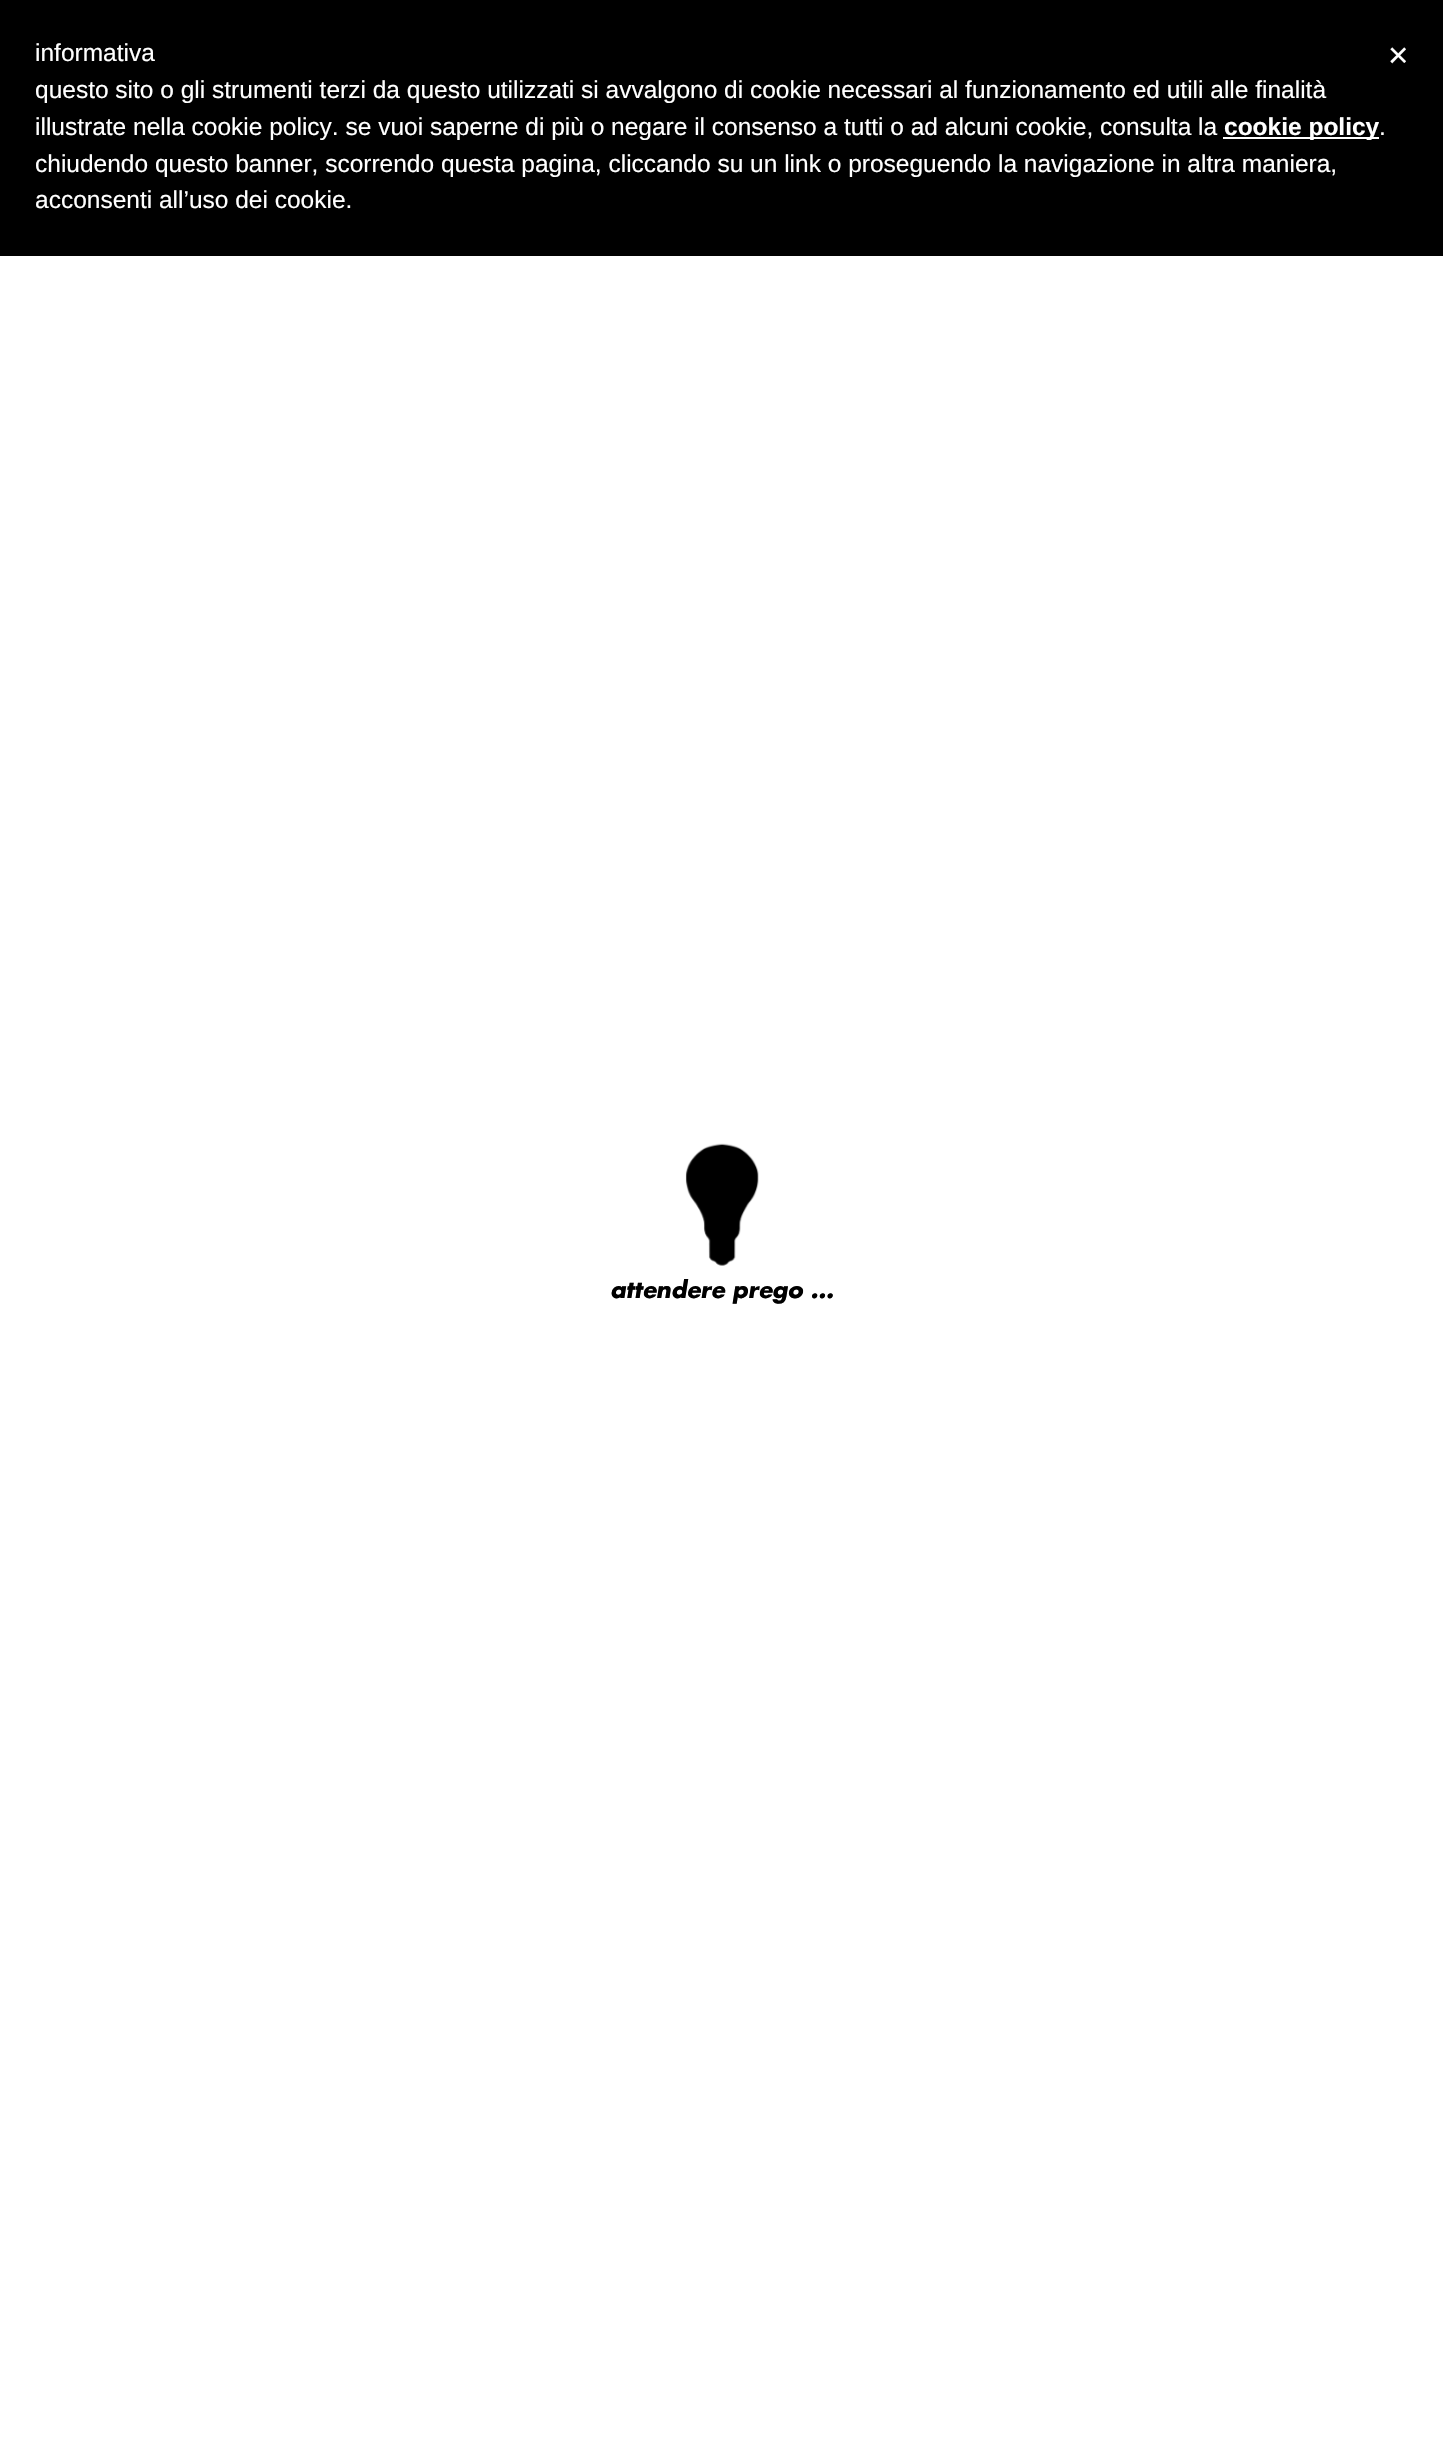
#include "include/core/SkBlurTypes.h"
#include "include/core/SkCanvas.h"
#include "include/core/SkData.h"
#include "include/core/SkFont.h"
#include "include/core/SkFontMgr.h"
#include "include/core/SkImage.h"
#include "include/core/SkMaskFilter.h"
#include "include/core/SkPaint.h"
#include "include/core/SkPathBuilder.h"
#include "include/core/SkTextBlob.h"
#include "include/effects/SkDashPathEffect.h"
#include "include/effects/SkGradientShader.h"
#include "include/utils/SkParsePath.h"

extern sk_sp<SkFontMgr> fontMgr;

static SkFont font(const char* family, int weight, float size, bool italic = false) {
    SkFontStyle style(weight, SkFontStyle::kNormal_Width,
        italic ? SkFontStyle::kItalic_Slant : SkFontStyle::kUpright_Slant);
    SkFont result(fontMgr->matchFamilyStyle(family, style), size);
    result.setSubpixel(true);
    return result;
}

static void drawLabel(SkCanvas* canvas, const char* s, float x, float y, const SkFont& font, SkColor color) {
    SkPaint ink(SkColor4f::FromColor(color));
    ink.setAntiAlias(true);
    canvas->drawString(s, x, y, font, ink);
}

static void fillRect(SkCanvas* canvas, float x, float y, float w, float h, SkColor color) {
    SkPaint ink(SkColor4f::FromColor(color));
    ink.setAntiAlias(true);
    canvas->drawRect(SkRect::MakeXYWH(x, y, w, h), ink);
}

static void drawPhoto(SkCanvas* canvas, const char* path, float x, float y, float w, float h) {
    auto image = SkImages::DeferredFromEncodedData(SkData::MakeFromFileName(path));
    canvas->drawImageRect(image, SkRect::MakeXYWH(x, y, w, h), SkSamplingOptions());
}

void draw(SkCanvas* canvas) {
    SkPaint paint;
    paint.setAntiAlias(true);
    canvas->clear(0xFFFFFFFF);
    fillRect(canvas, 0, 0, 1443, 256, 0xFF000000);
    SkFont font1 = font("Liberation Sans", 400, 24.5f);
    drawLabel(canvas, "informativa", 35, 61, font1, 0xFFFFFFFF);
    drawLabel(canvas, "questo sito o gli strumenti terzi da questo utilizzati si avvalgono di cookie necessari al funzionamento ed utili alle finalità", 35, 98, font1, 0xFFFFFFFF);
    drawLabel(canvas, "illustrate nella cookie policy. se vuoi saperne di più o negare il consenso a tutti o ad alcuni cookie, consulta la", 35, 135, font1, 0xFFFFFFFF);
    fillRect(canvas, 1223, 137, 156, 2, 0xFFFFFFFF);
    SkFont font2 = font("Liberation Sans", 700, 24.5f);
    drawLabel(canvas, "cookie policy", 1224, 135, font2, 0xFFFFFFFF);
    drawLabel(canvas, ".", 1379, 135, font1, 0xFFFFFFFF);
    drawLabel(canvas, "chiudendo questo banner, scorrendo questa pagina, cliccando su un link o proseguendo la navigazione in altra maniera,", 35, 172, font1, 0xFFFFFFFF);
    drawLabel(canvas, "acconsenti all’uso dei cookie.", 35, 208, font1, 0xFFFFFFFF);
    SkFont font3 = font("Liberation Sans", 400, 35);
    drawLabel(canvas, "×", 1388, 67, font3, 0xFFFFFFFF);
    drawPhoto(canvas, "assets/img1.png", 685, 1143, 74, 123);
    SkFont font4 = font("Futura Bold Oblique", 700, 22.75f);
    drawLabel(canvas, "attendere prego ...", 610, 1298, font4, 0xFF000000);
}
